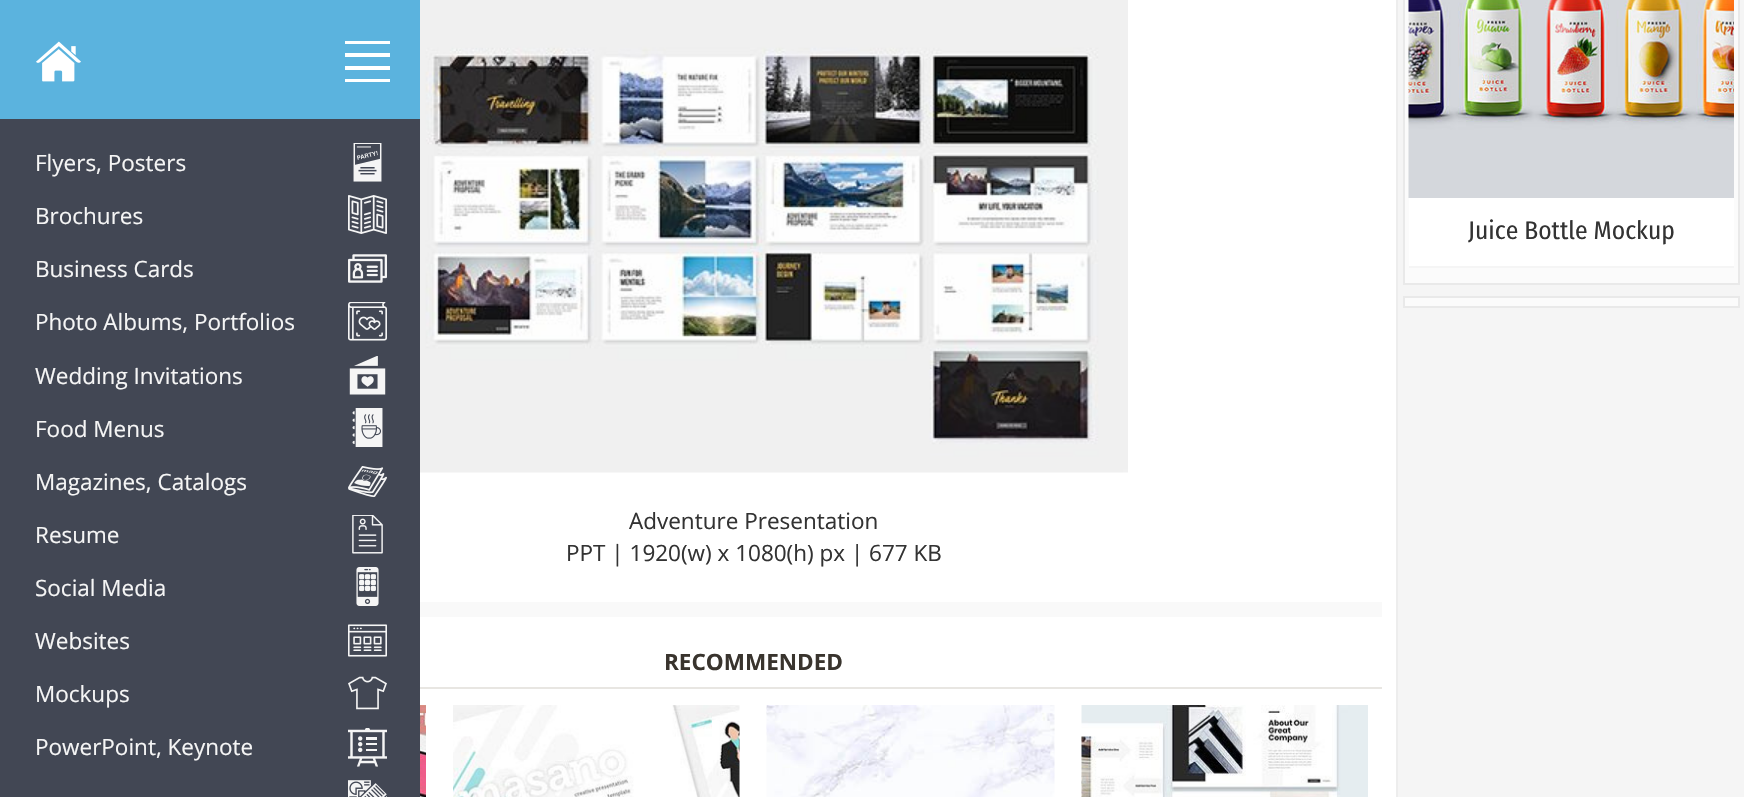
#include "include/core/SkBlurTypes.h"
#include "include/core/SkCanvas.h"
#include "include/core/SkData.h"
#include "include/core/SkFont.h"
#include "include/core/SkFontMgr.h"
#include "include/core/SkImage.h"
#include "include/core/SkMaskFilter.h"
#include "include/core/SkPaint.h"
#include "include/core/SkPathBuilder.h"
#include "include/core/SkTextBlob.h"
#include "include/effects/SkDashPathEffect.h"
#include "include/effects/SkGradientShader.h"
#include "include/utils/SkParsePath.h"

extern sk_sp<SkFontMgr> fontMgr;

static SkFont font(const char* family, int weight, float size, bool italic = false) {
    SkFontStyle style(weight, SkFontStyle::kNormal_Width,
        italic ? SkFontStyle::kItalic_Slant : SkFontStyle::kUpright_Slant);
    SkFont result(fontMgr->matchFamilyStyle(family, style), size);
    result.setSubpixel(true);
    return result;
}

static void drawLabel(SkCanvas* canvas, const char* s, float x, float y, const SkFont& font, SkColor color) {
    SkPaint ink(SkColor4f::FromColor(color));
    ink.setAntiAlias(true);
    canvas->drawString(s, x, y, font, ink);
}

static void fillRect(SkCanvas* canvas, float x, float y, float w, float h, SkColor color) {
    SkPaint ink(SkColor4f::FromColor(color));
    ink.setAntiAlias(true);
    canvas->drawRect(SkRect::MakeXYWH(x, y, w, h), ink);
}

static void drawPhoto(SkCanvas* canvas, const char* path, float x, float y, float w, float h) {
    auto image = SkImages::DeferredFromEncodedData(SkData::MakeFromFileName(path));
    canvas->drawImageRect(image, SkRect::MakeXYWH(x, y, w, h), SkSamplingOptions());
}

void draw(SkCanvas* canvas) {
    SkPaint paint;
    paint.setAntiAlias(true);
    canvas->clear(0xFFF5F5F5);
    fillRect(canvas, 420, 0, 976, 797, 0xFFFFFFFF);
    paint.setStroke(true);
    paint.setStrokeWidth(2);
    paint.setColor(0xFFEDEDED);
    canvas->drawRect(SkRect::MakeXYWH(111, -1, 1286, 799), paint);
    fillRect(canvas, 0, 119, 420, 678, 0xFF424754);
    fillRect(canvas, 0, 0, 420, 119, 0xFF5BB3DE);
    drawPhoto(canvas, "assets/img1.png", 36, 41, 45, 41);
    fillRect(canvas, 345, 41, 45, 3, 0xFFFFFFFF);
    fillRect(canvas, 345, 53, 45, 4, 0xFFFFFFFF);
    fillRect(canvas, 345, 66, 45, 4, 0xFFFFFFFF);
    fillRect(canvas, 345, 79, 45, 3, 0xFFFFFFFF);
    SkFont font1 = font("Open Sans", 400, 22.5f);
    drawLabel(canvas, "Flyers, Posters", 35, 171, font1, 0xFFF5F5F5);
    drawPhoto(canvas, "assets/img2.png", 353, 143, 29, 39);
    drawLabel(canvas, "Brochures", 35, 224, font1, 0xFFF5F5F5);
    drawPhoto(canvas, "assets/img3.png", 348, 195, 39, 39);
    drawLabel(canvas, "Business Cards", 35, 277, font1, 0xFFF5F5F5);
    drawPhoto(canvas, "assets/img4.png", 348, 254, 39, 29);
    drawLabel(canvas, "Photo Albums, Portfolios", 35, 330, font1, 0xFFF5F5F5);
    drawPhoto(canvas, "assets/img5.png", 348, 302, 39, 39);
    drawLabel(canvas, "Wedding Invitations", 35, 384, font1, 0xFFF5F5F5);
    drawPhoto(canvas, "assets/img6.png", 349, 356, 37, 39);
    drawLabel(canvas, "Food Menus", 35, 437, font1, 0xFFF5F5F5);
    drawPhoto(canvas, "assets/img7.png", 352, 408, 31, 39);
    drawLabel(canvas, "Magazines, Catalogs", 35, 490, font1, 0xFFF5F5F5);
    drawPhoto(canvas, "assets/img8.png", 348, 466, 39, 32);
    drawLabel(canvas, "Resume", 35, 543, font1, 0xFFF5F5F5);
    drawPhoto(canvas, "assets/img9.png", 352, 515, 31, 39);
    drawLabel(canvas, "Social Media", 35, 596, font1, 0xFFF5F5F5);
    drawPhoto(canvas, "assets/img10.png", 356, 567, 23, 39);
    drawLabel(canvas, "Websites", 35, 649, font1, 0xFFF5F5F5);
    drawPhoto(canvas, "assets/img11.png", 348, 624, 39, 33);
    drawLabel(canvas, "Mockups", 35, 702, font1, 0xFFF5F5F5);
    drawPhoto(canvas, "assets/img12.png", 348, 676, 39, 34);
    drawLabel(canvas, "PowerPoint, Keynote", 35, 755, font1, 0xFFF5F5F5);
    drawPhoto(canvas, "assets/img13.png", 348, 728, 39, 39);
    drawPhoto(canvas, "assets/img14.png", 348, 780, 39, 17);
    paint.setStroke(false);
    paint.setColor(0xFFFBFBFB);
    canvas->drawRect(SkRect::MakeXYWH(1404, -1, 335, 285), paint);
    paint.setStroke(true);
    paint.setColor(0xFFE9E9E9);
    canvas->drawRect(SkRect::MakeXYWH(1404, -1, 335, 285), paint);
    drawPhoto(canvas, "assets/img15.png", 1408, 0, 326, 198);
    fillRect(canvas, 1409, 198, 325, 68, 0xFFFFFFFF);
    fillRect(canvas, 1409, 266, 325, 2, 0xFFF5F5F5);
    SkFont font2 = font("Fira Sans Condensed", 400, 25.5f);
    drawLabel(canvas, "Juice Bottle Mockup", 1468, 239, font2, 0xFF333333);
    paint.setStroke(false);
    paint.setColor(0xFFFBFBFB);
    canvas->drawRect(SkRect::MakeXYWH(1404, 297, 335, 10), paint);
    paint.setStroke(true);
    paint.setColor(0xFFE9E9E9);
    canvas->drawRect(SkRect::MakeXYWH(1404, 297, 335, 10), paint);
    drawPhoto(canvas, "assets/img16.png", 420, 0, 708, 473);
    drawLabel(canvas, "Adventure Presentation", 629, 529, font1, 0xFF333333);
    drawLabel(canvas, "PPT | 1920(w) x 1080(h) px | 677 KB", 566, 561, font1, 0xFF333333);
    fillRect(canvas, 420, 602, 962, 15, 0xFFF9F9F9);
    fillRect(canvas, 420, 687, 962, 2, 0xFFE8E6E2);
    SkFont font3 = font("Open Sans", 700, 22.5f);
    drawLabel(canvas, "RECOMMENDED", 664, 670, font3, 0xFF39342E);
    drawPhoto(canvas, "assets/img17.png", 420, 705, 6, 92);
    drawPhoto(canvas, "assets/img18.png", 453, 705, 287, 92);
    drawPhoto(canvas, "assets/img19.png", 766, 705, 289, 92);
    drawPhoto(canvas, "assets/img20.png", 1081, 705, 287, 92);
}
